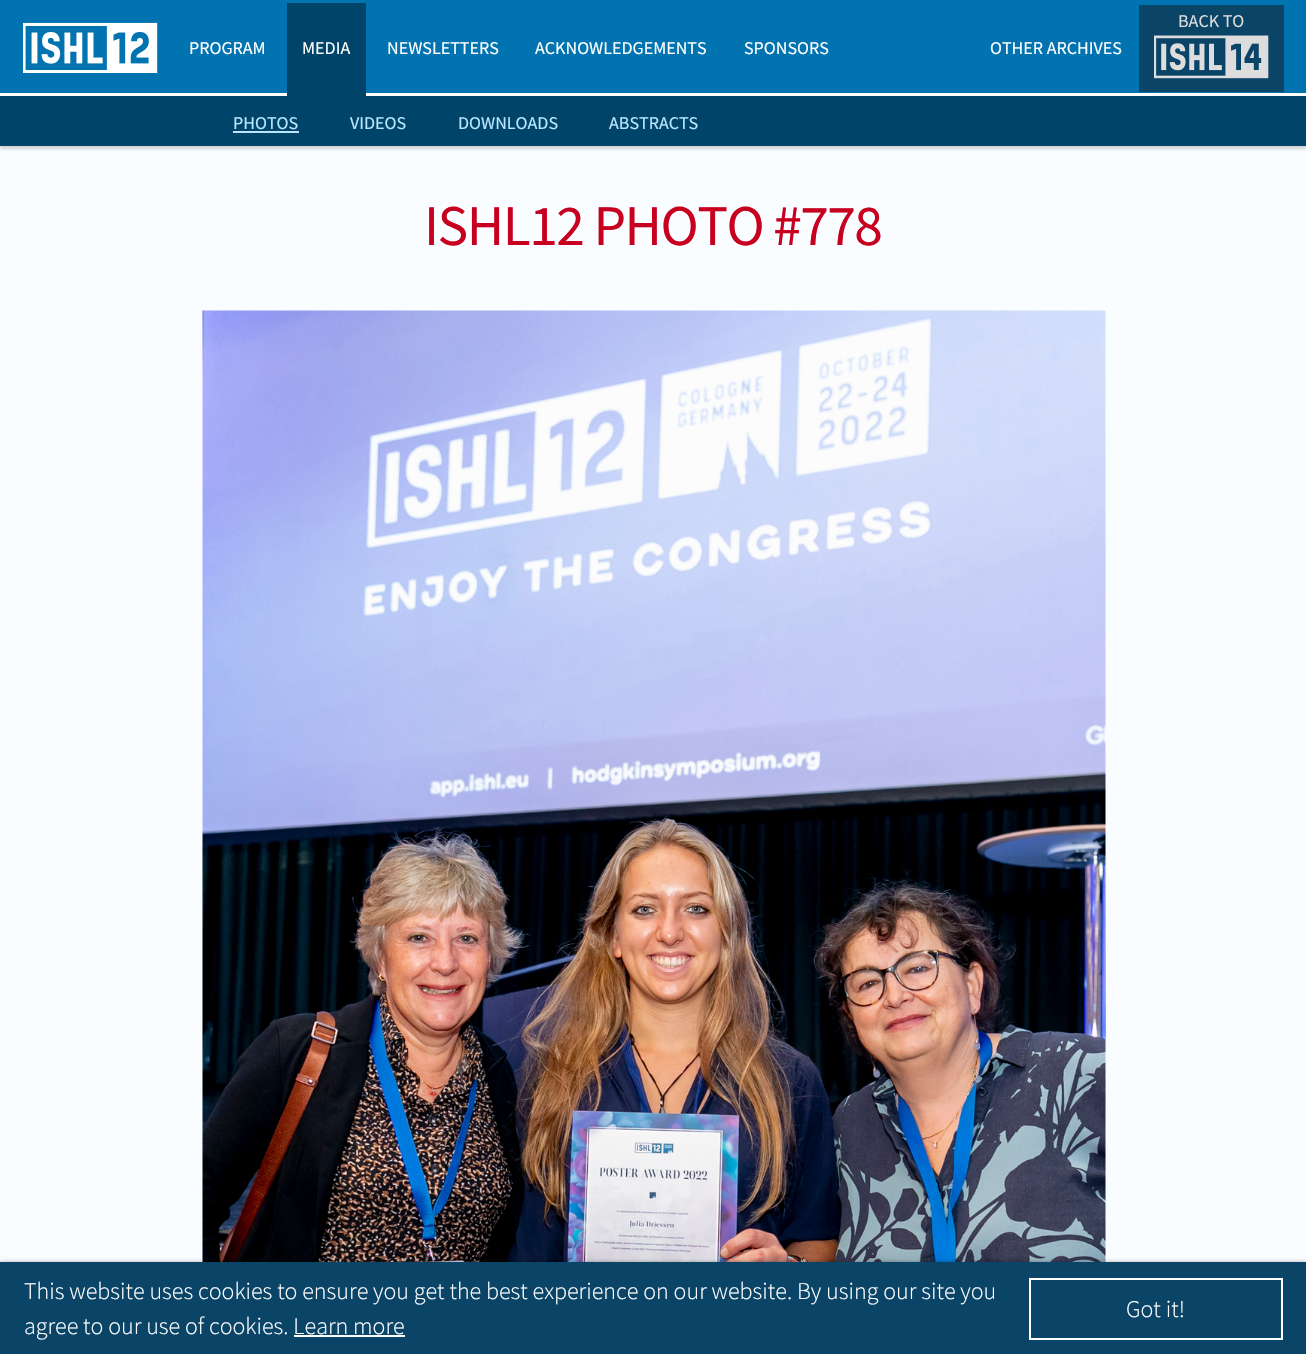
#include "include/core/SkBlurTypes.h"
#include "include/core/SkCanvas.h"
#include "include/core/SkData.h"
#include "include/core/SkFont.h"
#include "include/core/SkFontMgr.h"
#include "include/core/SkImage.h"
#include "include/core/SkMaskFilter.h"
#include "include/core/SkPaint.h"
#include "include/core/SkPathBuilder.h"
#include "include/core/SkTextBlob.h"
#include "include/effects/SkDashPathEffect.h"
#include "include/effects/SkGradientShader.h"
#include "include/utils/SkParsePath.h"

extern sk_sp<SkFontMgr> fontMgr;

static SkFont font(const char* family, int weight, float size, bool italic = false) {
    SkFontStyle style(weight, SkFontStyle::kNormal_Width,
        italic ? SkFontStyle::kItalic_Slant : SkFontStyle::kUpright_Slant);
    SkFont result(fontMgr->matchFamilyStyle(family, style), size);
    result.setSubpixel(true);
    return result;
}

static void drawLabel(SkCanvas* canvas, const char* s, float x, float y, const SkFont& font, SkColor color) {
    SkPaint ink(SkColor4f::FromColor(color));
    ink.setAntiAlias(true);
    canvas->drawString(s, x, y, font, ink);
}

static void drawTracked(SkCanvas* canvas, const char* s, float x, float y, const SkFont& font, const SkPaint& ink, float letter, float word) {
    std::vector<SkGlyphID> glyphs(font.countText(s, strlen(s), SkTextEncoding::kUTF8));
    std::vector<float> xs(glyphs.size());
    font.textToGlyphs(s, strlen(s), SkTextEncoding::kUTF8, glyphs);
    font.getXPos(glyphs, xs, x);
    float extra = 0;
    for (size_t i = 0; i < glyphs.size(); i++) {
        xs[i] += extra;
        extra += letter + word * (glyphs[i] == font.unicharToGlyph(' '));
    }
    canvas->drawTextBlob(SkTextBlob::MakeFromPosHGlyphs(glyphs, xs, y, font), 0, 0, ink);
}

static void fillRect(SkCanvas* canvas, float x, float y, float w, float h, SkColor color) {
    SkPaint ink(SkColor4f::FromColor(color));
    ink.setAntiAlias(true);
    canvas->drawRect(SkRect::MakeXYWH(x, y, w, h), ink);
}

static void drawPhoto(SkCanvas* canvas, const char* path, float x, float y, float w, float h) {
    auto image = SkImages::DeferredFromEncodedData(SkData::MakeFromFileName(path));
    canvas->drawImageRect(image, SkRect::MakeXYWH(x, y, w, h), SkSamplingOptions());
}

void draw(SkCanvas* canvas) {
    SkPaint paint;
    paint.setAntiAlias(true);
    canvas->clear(0xFFFAFDFF);
    fillRect(canvas, 0, 0, 1306, 93, 0xFF0073B0);
    drawPhoto(canvas, "assets/img1.png", 23, 22, 135, 51);
    SkFont font1 = font("Source Sans Pro", 400, 18);
    drawLabel(canvas, "PROGRAM", 189, 54, font1, 0xFFFFFFFF);
    fillRect(canvas, 287, 3, 79, 90, 0xFF004569);
    drawLabel(canvas, "MEDIA", 302, 54, font1, 0xFFFFFFFF);
    fillRect(canvas, 1139, 5, 145, 87, 0xFF0A4568);
    paint.setColor(0x33282828);
    paint.setMaskFilter(SkMaskFilter::MakeBlur(kNormal_SkBlurStyle, 1.5f));
    canvas->drawRect(SkRect::MakeXYWH(0, 96, 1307, 53), paint);
    paint.setMaskFilter(nullptr);
    fillRect(canvas, 0, 93, 1306, 3, 0xFFFFFFFF);
    fillRect(canvas, 287, 93, 79, 3, 0xFF004569);
    fillRect(canvas, 0, 96, 1306, 50, 0xFF004569);
    drawLabel(canvas, "PHOTOS", 233, 129, font1, 0xFFB9E6FE);
    fillRect(canvas, 233, 131, 66, 2, 0xFFB9E6FE);
    drawLabel(canvas, "VIDEOS", 350, 129, font1, 0xFFB9E6FE);
    drawLabel(canvas, "DOWNLOADS", 458, 129, font1, 0xFFB9E6FE);
    drawLabel(canvas, "ABSTRACTS", 609, 129, font1, 0xFFB9E6FE);
    drawLabel(canvas, "NEWSLETTERS", 387, 54, font1, 0xFFFFFFFF);
    drawLabel(canvas, "ACKNOWLEDGEMENTS", 535, 54, font1, 0xFFFFFFFF);
    drawLabel(canvas, "SPONSORS", 744, 54, font1, 0xFFFFFFFF);
    drawLabel(canvas, "OTHER ARCHIVES", 990, 54, font1, 0xFFFFFFFF);
    drawLabel(canvas, "BACK TO", 1178, 27, font1, 0xFFDDDDDD);
    drawPhoto(canvas, "assets/img2.png", 1154, 35, 115, 44);
    SkFont font2 = font("Source Sans Pro", 400, 57.5f);
    paint.setColor(0xFFC70020);
    drawTracked(canvas, "ISHL12 PHOTO #778", 424, 245, font2, paint, -1.5f, 0);
    drawPhoto(canvas, "assets/img3.png", 202, 310, 904, 952);
    paint.setColor(0x4D000000);
    paint.setMaskFilter(SkMaskFilter::MakeBlur(kNormal_SkBlurStyle, 2));
    canvas->drawRect(SkRect::MakeXYWH(0, 1262, 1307, 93), paint);
    paint.setMaskFilter(nullptr);
    fillRect(canvas, 0, 1262, 1306, 92, 0xFF0A4568);
    SkFont font3 = font("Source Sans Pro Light", 300, 24);
    drawLabel(canvas, "This website uses cookies to ensure you get the best experience on our website. By using our site you", 24, 1299, font3, 0xFFFFFFFF);
    drawLabel(canvas, "agree to our use of cookies. Learn more", 24, 1334, font3, 0xFFFFFFFF);
    fillRect(canvas, 294, 1335, 111, 2, 0xFFFFFFFF);
    paint.setStroke(true);
    paint.setStrokeWidth(2);
    paint.setColor(0xFFFFFFFF);
    canvas->drawRect(SkRect::MakeXYWH(1030, 1279, 252, 60), paint);
    drawLabel(canvas, "Got it!", 1126, 1317, font3, 0xFFFFFFFF);
}
